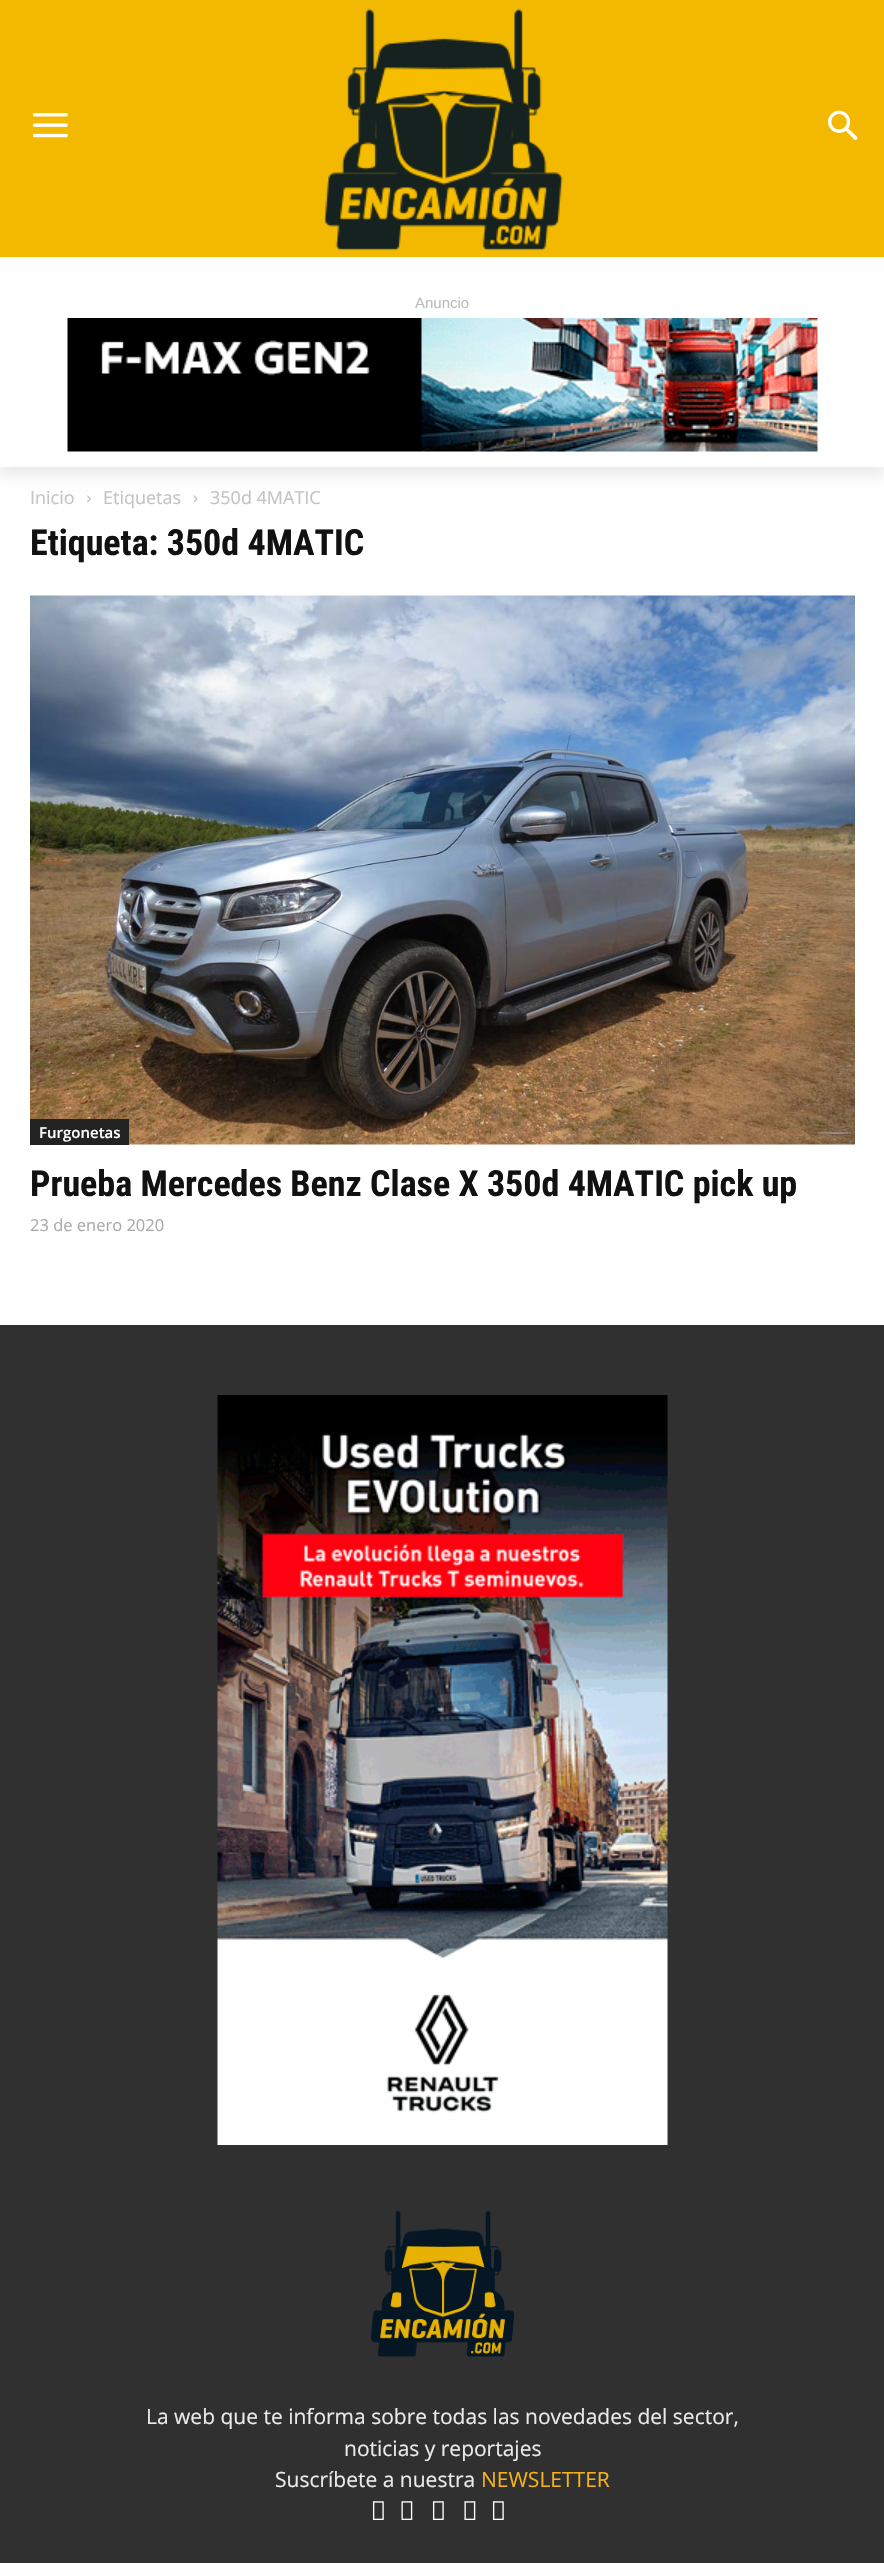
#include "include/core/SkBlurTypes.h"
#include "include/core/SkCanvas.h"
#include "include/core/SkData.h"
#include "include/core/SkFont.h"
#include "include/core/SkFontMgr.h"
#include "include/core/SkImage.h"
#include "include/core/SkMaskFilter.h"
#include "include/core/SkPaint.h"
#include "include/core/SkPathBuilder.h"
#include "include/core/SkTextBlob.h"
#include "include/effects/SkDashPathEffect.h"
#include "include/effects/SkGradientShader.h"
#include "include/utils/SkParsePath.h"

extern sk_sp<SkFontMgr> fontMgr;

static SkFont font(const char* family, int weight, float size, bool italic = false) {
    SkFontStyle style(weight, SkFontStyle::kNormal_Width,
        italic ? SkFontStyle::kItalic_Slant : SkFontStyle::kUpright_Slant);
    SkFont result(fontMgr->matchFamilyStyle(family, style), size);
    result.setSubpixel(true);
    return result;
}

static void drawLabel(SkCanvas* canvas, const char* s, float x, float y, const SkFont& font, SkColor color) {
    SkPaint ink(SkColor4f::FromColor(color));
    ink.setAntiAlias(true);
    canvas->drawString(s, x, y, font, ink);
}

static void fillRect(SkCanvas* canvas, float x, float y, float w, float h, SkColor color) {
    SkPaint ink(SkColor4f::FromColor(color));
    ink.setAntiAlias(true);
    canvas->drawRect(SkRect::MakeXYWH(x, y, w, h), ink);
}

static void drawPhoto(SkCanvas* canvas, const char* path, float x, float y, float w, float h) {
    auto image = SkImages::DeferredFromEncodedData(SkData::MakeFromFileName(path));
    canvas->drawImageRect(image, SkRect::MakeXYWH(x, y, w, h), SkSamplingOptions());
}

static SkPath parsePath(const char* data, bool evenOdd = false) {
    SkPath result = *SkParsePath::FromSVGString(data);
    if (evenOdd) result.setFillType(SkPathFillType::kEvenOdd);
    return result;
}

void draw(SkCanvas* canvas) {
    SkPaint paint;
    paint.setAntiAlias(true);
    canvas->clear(0xFFFFFFFF);
    fillRect(canvas, 0, 0, 884, 257, 0xFFF2B900);
    drawPhoto(canvas, "assets/img1.png", 33, 113, 35, 25);
    drawPhoto(canvas, "assets/img2.png", 324, 8, 239, 243);
    drawPhoto(canvas, "assets/img3.png", 828, 110, 30, 30);
    drawPhoto(canvas, "assets/img4.png", 67, 318, 751, 134);
    canvas->save();
    canvas->clipPath(parsePath("M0 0H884V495H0ZM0 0H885V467H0Z", true), true);
    paint.setColor(0x14000000);
    paint.setMaskFilter(SkMaskFilter::MakeBlur(kNormal_SkBlurStyle, 6));
    canvas->drawRect(SkRect::MakeXYWH(0, 9, 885, 467), paint);
    paint.setMaskFilter(nullptr);
    canvas->restore();
    SkFont font1 = font("Liberation Sans", 400, 15);
    drawLabel(canvas, "Anuncio", 415, 308, font1, 0xFFBBBBBB);
    SkFont font2 = font("Open Sans", 400, 18);
    drawLabel(canvas, "Inicio", 30, 504, font2, 0xFFC3C3C3);
    drawPhoto(canvas, "assets/img5.png", 87, 495, 4, 8);
    drawLabel(canvas, "Etiquetas", 103, 504, font2, 0xFFC3C3C3);
    drawPhoto(canvas, "assets/img6.png", 193, 495, 5, 8);
    drawLabel(canvas, "350d 4MATIC", 210, 504, font2, 0xFFC3C3C3);
    SkFont font3 = font("Roboto Condensed", 700, 36);
    drawLabel(canvas, "Etiqueta: 350d 4MATIC", 30, 555, font3, 0xFF111111);
    drawPhoto(canvas, "assets/img7.png", 30, 595, 825, 550);
    fillRect(canvas, 30, 1119, 99, 26, 0xFF222222);
    SkFont font4 = font("Open Sans", 600, 15);
    drawLabel(canvas, "Furgonetas", 39, 1138, font4, 0xFFFFFFFF);
    drawLabel(canvas, "Prueba Mercedes Benz Clase X 350d 4MATIC pick up", 30, 1196, font3, 0xFF111111);
    SkFont font5 = font("Open Sans", 400, 16.5f);
    drawLabel(canvas, "23 de enero 2020", 30, 1231, font5, 0xFFAAAAAA);
    fillRect(canvas, 0, 1325, 884, 1238, 0xFF303030);
    drawPhoto(canvas, "assets/img8.png", 217, 1395, 451, 750);
    drawPhoto(canvas, "assets/img9.png", 370, 2210, 145, 147);
    SkFont font6 = font("Open Sans", 400, 21);
    drawLabel(canvas, "La web que te informa sobre todas las novedades del sector,", 146, 2424, font6, 0xFFEAEAEA);
    drawLabel(canvas, "noticias y reportajes", 344, 2456, font6, 0xFFEAEAEA);
    drawLabel(canvas, "Suscríbete a nuestra", 275, 2487, font6, 0xFFEAEAEA);
    drawLabel(canvas, "NEWSLETTER", 481, 2487, font6, 0xFFF3B11B);
    drawPhoto(canvas, "assets/img10.png", 372, 2501, 12, 19);
    drawPhoto(canvas, "assets/img11.png", 401, 2501, 12, 19);
    drawPhoto(canvas, "assets/img10.png", 432, 2501, 12, 19);
    drawPhoto(canvas, "assets/img11.png", 464, 2501, 12, 19);
    drawPhoto(canvas, "assets/img10.png", 492, 2501, 12, 19);
}
